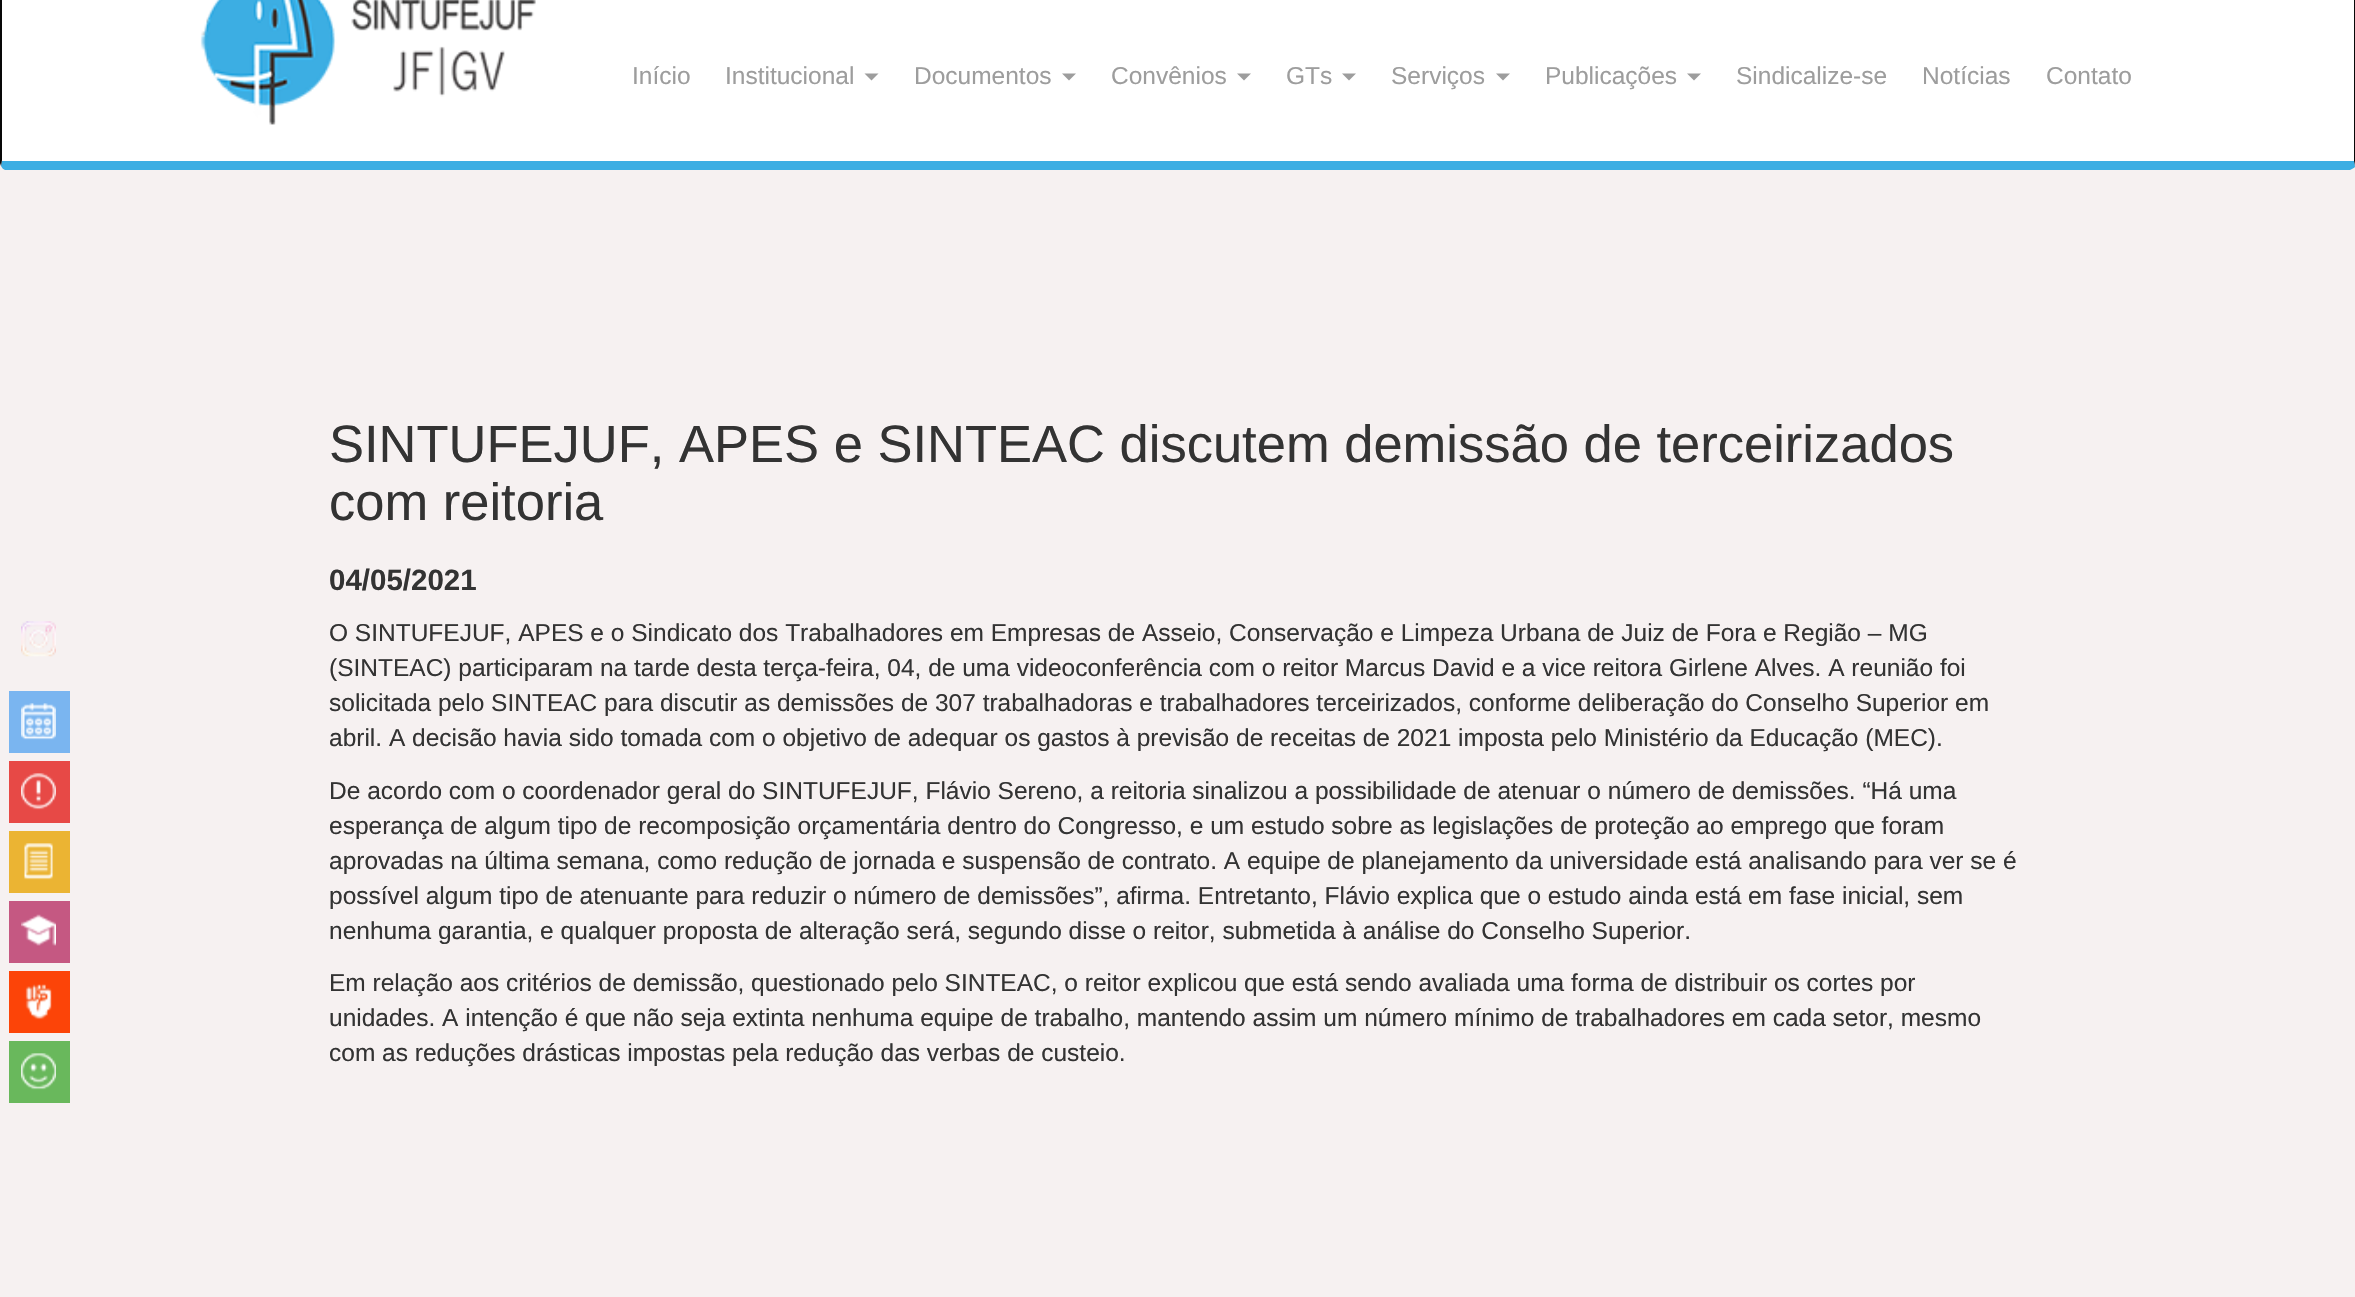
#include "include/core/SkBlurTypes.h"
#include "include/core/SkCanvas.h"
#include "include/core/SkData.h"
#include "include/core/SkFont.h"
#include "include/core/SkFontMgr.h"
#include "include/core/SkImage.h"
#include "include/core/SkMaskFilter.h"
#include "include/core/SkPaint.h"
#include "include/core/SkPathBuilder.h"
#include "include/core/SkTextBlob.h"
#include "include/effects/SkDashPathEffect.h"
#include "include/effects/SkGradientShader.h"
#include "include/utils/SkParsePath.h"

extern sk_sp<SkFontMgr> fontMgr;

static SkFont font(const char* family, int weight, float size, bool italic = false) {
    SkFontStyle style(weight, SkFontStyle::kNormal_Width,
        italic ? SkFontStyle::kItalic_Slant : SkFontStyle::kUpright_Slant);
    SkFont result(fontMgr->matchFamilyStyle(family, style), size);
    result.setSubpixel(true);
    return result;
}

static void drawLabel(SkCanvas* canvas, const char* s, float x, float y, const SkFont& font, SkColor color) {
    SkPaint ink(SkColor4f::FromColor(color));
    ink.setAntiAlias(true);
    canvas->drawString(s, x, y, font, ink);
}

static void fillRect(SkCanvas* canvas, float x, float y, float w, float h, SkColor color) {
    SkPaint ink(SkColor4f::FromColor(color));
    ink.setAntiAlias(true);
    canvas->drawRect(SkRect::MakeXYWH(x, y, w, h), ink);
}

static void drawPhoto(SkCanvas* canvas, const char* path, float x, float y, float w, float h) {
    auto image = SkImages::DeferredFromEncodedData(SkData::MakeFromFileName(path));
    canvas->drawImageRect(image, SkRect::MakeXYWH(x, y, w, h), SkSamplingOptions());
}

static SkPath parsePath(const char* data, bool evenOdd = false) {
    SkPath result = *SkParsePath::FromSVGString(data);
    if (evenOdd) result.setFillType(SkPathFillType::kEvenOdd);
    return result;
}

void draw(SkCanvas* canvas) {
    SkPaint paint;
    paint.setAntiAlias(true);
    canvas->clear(0xFFF6F1F1);
    paint.setColor(0xFFFFFFFF);
    canvas->drawPath(parsePath("M7-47H2348C2351-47 2354-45 2354-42V161H2V-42C2-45 4-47 7-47Z"), paint);
    paint.setColor(0xFF080808);
    canvas->drawPath(parsePath("M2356 165L2355 167L2354 161V-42C2354-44 2353-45 2352-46L2354-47L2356-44Z"), paint);
    paint.setColor(0xFF3CAEE3);
    canvas->drawPath(parsePath("M5 170C3 169 2 168 1 166L2 160V161H2354L2355 167C2354 168 2352 169 2350 170Z"), paint);
    paint.setColor(0xFF080808);
    canvas->drawPath(parsePath("M0-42V163L1 166L2 160V-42C2-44 2-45 3-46L2-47C1-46 0-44 0-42Z"), paint);
    drawPhoto(canvas, "assets/img1.png", 200, 0, 336, 125);
    SkFont font1 = font("Liberation Sans", 400, 24.5f);
    drawLabel(canvas, "Início", 632, 84, font1, 0xFF9D9D9D);
    drawLabel(canvas, "Institucional", 725, 84, font1, 0xFF9D9D9D);
    paint.setColor(0xFF9D9D9D);
    canvas->drawPath(parsePath("M864.5 73.5H878.5L871.5 80.5Z"), paint);
    drawLabel(canvas, "Documentos", 914, 84, font1, 0xFF9D9D9D);
    canvas->drawPath(parsePath("M1062 73.5H1076L1069 80.5Z"), paint);
    drawLabel(canvas, "Convênios", 1111, 84, font1, 0xFF9D9D9D);
    canvas->drawPath(parsePath("M1237 73.5H1251L1244 80.5Z"), paint);
    drawLabel(canvas, "GTs", 1286, 84, font1, 0xFF9D9D9D);
    canvas->drawPath(parsePath("M1342 73.5H1356L1349 80.5Z"), paint);
    drawLabel(canvas, "Serviços", 1391, 84, font1, 0xFF9D9D9D);
    canvas->drawPath(parsePath("M1496 73.5H1510L1503 80.5Z"), paint);
    drawLabel(canvas, "Publicações", 1545, 84, font1, 0xFF9D9D9D);
    canvas->drawPath(parsePath("M1687 73.5H1701L1694 80.5Z"), paint);
    drawLabel(canvas, "Sindicalize-se", 1736, 84, font1, 0xFF9D9D9D);
    drawLabel(canvas, "Notícias", 1922, 84, font1, 0xFF9D9D9D);
    drawLabel(canvas, "Contato", 2046, 84, font1, 0xFF9D9D9D);
    drawPhoto(canvas, "assets/img2.png", 21, 621, 35, 36);
    fillRect(canvas, 9, 691, 61, 62, 0xFF7AB5F0);
    drawPhoto(canvas, "assets/img3.png", 21, 703, 35, 37);
    fillRect(canvas, 9, 761, 61, 62, 0xFFE74946);
    drawPhoto(canvas, "assets/img4.png", 21, 773, 35, 37);
    fillRect(canvas, 9, 831, 61, 62, 0xFFEBB433);
    drawPhoto(canvas, "assets/img5.png", 24, 843, 29, 37);
    fillRect(canvas, 9, 901, 61, 62, 0xFFC55882);
    drawPhoto(canvas, "assets/img6.png", 21, 914, 35, 32);
    fillRect(canvas, 9, 971, 61, 62, 0xFFFC4408);
    drawPhoto(canvas, "assets/img7.png", 25, 984, 27, 36);
    fillRect(canvas, 9, 1041, 61, 62, 0xFF69B85C);
    drawPhoto(canvas, "assets/img8.png", 21, 1053, 35, 37);
    SkFont font2 = font("Liberation Sans", 400, 52.5f);
    drawLabel(canvas, "SINTUFEJUF, APES e SINTEAC discutem demissão de terceirizados", 329, 462, font2, 0xFF333333);
    drawLabel(canvas, "com reitoria", 329, 520, font2, 0xFF333333);
    SkFont font3 = font("Liberation Sans", 700, 29.5f);
    drawLabel(canvas, "04/05/2021", 329, 590, font3, 0xFF333333);
    drawLabel(canvas, "O SINTUFEJUF, APES e o Sindicato dos Trabalhadores em Empresas de Asseio, Conservação e Limpeza Urbana de Juiz de Fora e Região – MG", 329, 641, font1, 0xFF333333);
    drawLabel(canvas, "(SINTEAC) participaram na tarde desta terça-feira, 04, de uma videoconferência com o reitor Marcus David e a vice reitora Girlene Alves. A reunião foi", 329, 676, font1, 0xFF333333);
    drawLabel(canvas, "solicitada pelo SINTEAC para discutir as demissões de 307 trabalhadoras e trabalhadores terceirizados, conforme deliberação do Conselho Superior em", 329, 711, font1, 0xFF333333);
    drawLabel(canvas, "abril. A decisão havia sido tomada com o objetivo de adequar os gastos à previsão de receitas de 2021 imposta pelo Ministério da Educação (MEC).", 329, 746, font1, 0xFF333333);
    drawLabel(canvas, "De acordo com o coordenador geral do SINTUFEJUF, Flávio Sereno, a reitoria sinalizou a possibilidade de atenuar o número de demissões. “Há uma", 329, 799, font1, 0xFF333333);
    drawLabel(canvas, "esperança de algum tipo de recomposição orçamentária dentro do Congresso, e um estudo sobre as legislações de proteção ao emprego que foram", 329, 834, font1, 0xFF333333);
    drawLabel(canvas, "aprovadas na última semana, como redução de jornada e suspensão de contrato. A equipe de planejamento da universidade está analisando para ver se é", 329, 869, font1, 0xFF333333);
    drawLabel(canvas, "possível algum tipo de atenuante para reduzir o número de demissões”, afirma. Entretanto, Flávio explica que o estudo ainda está em fase inicial, sem", 329, 904, font1, 0xFF333333);
    drawLabel(canvas, "nenhuma garantia, e qualquer proposta de alteração será, segundo disse o reitor, submetida à análise do Conselho Superior.", 329, 939, font1, 0xFF333333);
    drawLabel(canvas, "Em relação aos critérios de demissão, questionado pelo SINTEAC, o reitor explicou que está sendo avaliada uma forma de distribuir os cortes por", 329, 991, font1, 0xFF333333);
    drawLabel(canvas, "unidades. A intenção é que não seja extinta nenhuma equipe de trabalho, mantendo assim um número mínimo de trabalhadores em cada setor, mesmo", 329, 1026, font1, 0xFF333333);
    drawLabel(canvas, "com as reduções drásticas impostas pela redução das verbas de custeio.", 329, 1061, font1, 0xFF333333);
}
